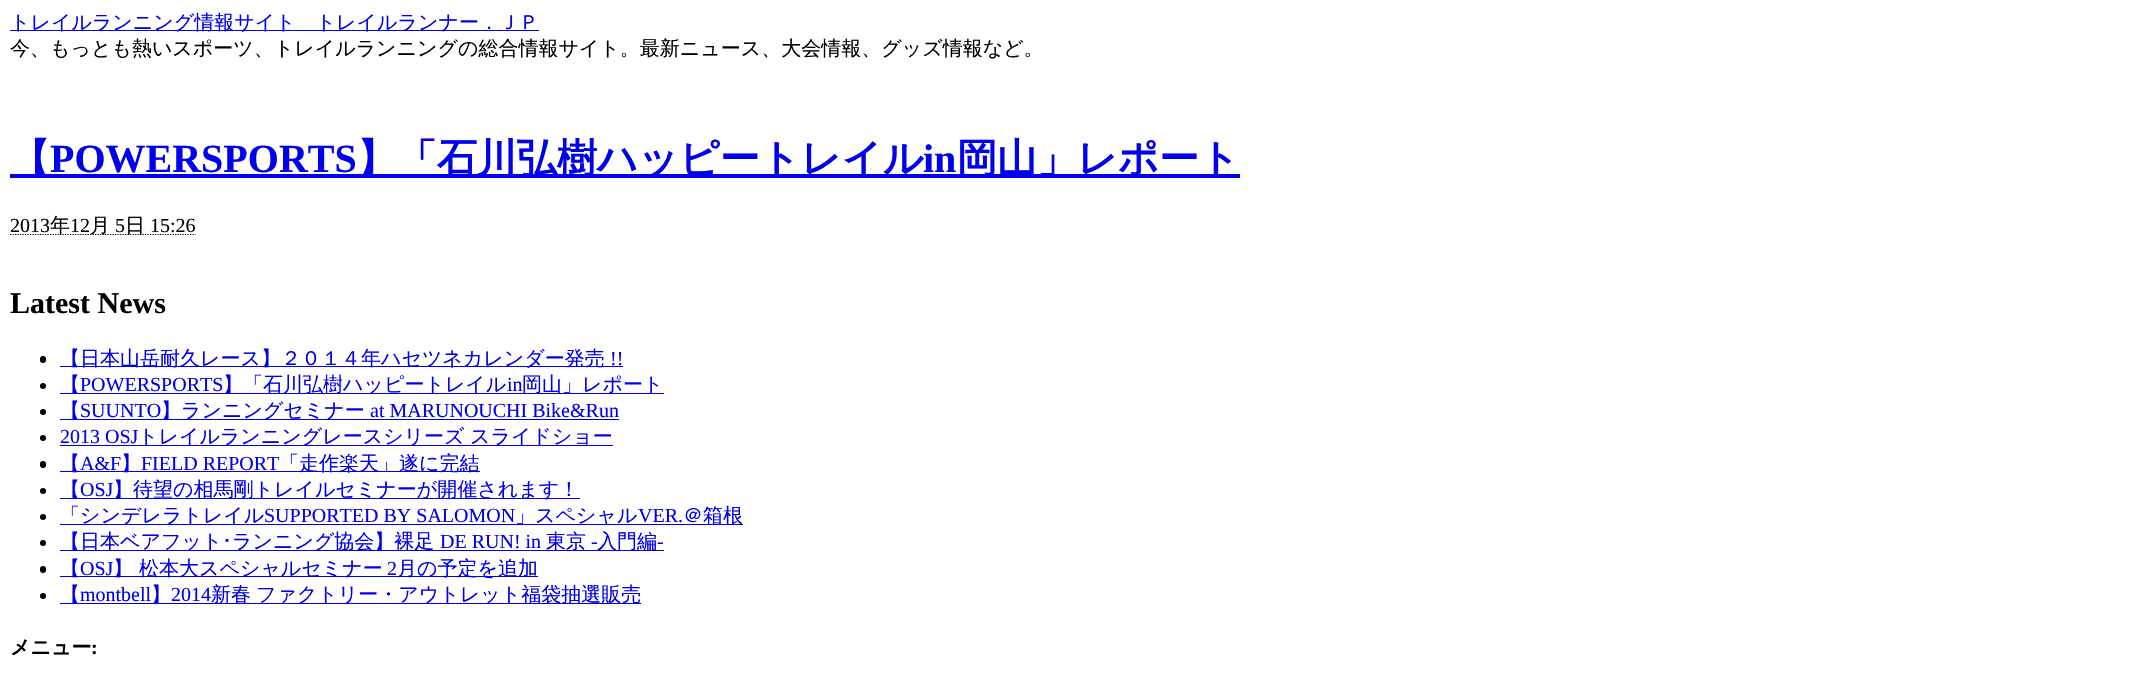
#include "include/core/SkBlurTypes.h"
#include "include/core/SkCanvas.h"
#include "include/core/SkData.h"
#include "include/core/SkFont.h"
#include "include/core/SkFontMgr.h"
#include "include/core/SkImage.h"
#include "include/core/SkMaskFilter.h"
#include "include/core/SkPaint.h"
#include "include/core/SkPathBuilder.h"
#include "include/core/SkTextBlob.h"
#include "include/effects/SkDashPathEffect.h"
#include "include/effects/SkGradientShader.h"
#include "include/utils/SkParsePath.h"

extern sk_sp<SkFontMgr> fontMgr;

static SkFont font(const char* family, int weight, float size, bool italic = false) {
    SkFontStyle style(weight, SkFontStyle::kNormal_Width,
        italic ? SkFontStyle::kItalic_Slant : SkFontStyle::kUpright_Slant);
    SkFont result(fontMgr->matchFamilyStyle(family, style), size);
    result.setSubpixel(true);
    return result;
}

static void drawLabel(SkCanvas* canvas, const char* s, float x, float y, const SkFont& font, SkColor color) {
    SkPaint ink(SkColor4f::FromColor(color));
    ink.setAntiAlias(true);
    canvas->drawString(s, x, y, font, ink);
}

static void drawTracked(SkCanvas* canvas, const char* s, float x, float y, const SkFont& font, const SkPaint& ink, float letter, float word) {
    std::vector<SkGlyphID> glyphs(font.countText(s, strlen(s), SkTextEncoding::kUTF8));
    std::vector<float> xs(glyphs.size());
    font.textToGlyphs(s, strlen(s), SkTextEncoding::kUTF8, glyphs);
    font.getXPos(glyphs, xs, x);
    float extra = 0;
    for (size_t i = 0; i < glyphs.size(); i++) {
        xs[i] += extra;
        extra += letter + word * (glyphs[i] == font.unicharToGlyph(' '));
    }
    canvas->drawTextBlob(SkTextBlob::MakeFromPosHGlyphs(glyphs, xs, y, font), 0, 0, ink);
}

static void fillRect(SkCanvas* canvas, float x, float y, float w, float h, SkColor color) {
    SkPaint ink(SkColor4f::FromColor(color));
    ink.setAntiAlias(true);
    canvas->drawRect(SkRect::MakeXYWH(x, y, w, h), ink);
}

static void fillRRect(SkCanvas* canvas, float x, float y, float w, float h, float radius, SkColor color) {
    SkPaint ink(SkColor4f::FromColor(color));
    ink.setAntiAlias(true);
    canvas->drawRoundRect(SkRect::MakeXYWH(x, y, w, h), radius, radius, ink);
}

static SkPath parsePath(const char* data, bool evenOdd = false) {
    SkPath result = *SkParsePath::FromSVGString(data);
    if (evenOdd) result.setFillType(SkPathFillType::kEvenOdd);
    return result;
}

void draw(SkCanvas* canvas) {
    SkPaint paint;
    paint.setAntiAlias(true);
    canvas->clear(0xFFFFFFFF);
    fillRect(canvas, 10, 30, 529, 1, 0xFF0000EE);
    SkFont font1 = font("WenQuanYi Zen Hei", 500, 20);
    drawLabel(canvas, "トレイルランニング情報サイト　トレイルランナー．ＪＰ", 10, 29, font1, 0xFF0000EE);
    drawLabel(canvas, "今、もっとも熱いスポーツ、トレイルランニングの総合情報サイト。最新ニュース、大会情報、グッズ情報など。", 10, 55, font1, 0xFF000000);
    fillRect(canvas, 10, 174, 1230, 4, 0xFF0000EE);
    SkFont font2 = font("WenQuanYi Zen Hei", 700, 40);
    drawLabel(canvas, "【", 10, 172, font2, 0xFF0000EE);
    SkFont font3 = font("Liberation Serif", 700, 40);
    drawLabel(canvas, "POWERSPORTS", 50, 172, font3, 0xFF0000EE);
    drawLabel(canvas, "】「石川弘樹ハッピートレイル", 357, 172, font2, 0xFF0000EE);
    drawLabel(canvas, "in", 923, 172, font3, 0xFF0000EE);
    drawLabel(canvas, "岡山」レポート", 957, 172, font2, 0xFF0000EE);
    SkFont font4 = font("Liberation Serif", 400, 20);
    drawLabel(canvas, "2013", 10, 232, font4, 0xFF000000);
    paint.setStroke(true);
    paint.setStrokeWidth(1.2f);
    paint.setColor(0xFF000000);
    paint.setPathEffect(SkDashPathEffect::Make({{1.25f, 1.25f}}, 0));
    canvas->drawPath(parsePath("M10 234.5H195.5"), paint);
    paint.setPathEffect(nullptr);
    drawLabel(canvas, "年", 50, 232, font1, 0xFF000000);
    drawLabel(canvas, "12", 70, 232, font4, 0xFF000000);
    drawLabel(canvas, "月", 90, 232, font1, 0xFF000000);
    drawLabel(canvas, "5", 115, 232, font4, 0xFF000000);
    drawLabel(canvas, "日", 125, 232, font1, 0xFF000000);
    drawLabel(canvas, "15:26", 150, 232, font4, 0xFF000000);
    SkFont font5 = font("Liberation Serif", 700, 30);
    drawLabel(canvas, "Latest News", 10, 313, font5, 0xFF000000);
    fillRRect(canvas, 40, 356, 6, 7, 3, 0xFF000000);
    fillRect(canvas, 60, 366, 563, 1, 0xFF0000EE);
    drawLabel(canvas, "【日本山岳耐久レース】２０１４年ハセツネカレンダー発売", 60, 365, font1, 0xFF0000EE);
    drawLabel(canvas, "!!", 610, 365, font4, 0xFF0000EE);
    paint.setStroke(false);
    canvas->drawCircle(43, 386, 3, paint);
    fillRect(canvas, 60, 393, 604, 1, 0xFF0000EE);
    drawLabel(canvas, "【", 60, 391, font1, 0xFF0000EE);
    drawLabel(canvas, "POWERSPORTS", 80, 391, font4, 0xFF0000EE);
    drawLabel(canvas, "】「石川弘樹ハッピートレイル", 223, 391, font1, 0xFF0000EE);
    drawLabel(canvas, "in", 507, 391, font4, 0xFF0000EE);
    drawLabel(canvas, "岡山」レポート", 522, 391, font1, 0xFF0000EE);
    canvas->drawCircle(43, 412, 3, paint);
    fillRect(canvas, 60, 419, 559, 1, 0xFF0000EE);
    drawLabel(canvas, "【", 60, 417, font1, 0xFF0000EE);
    drawLabel(canvas, "SUUNTO", 80, 417, font4, 0xFF0000EE);
    drawLabel(canvas, "】ランニングセミナー", 161, 417, font1, 0xFF0000EE);
    drawLabel(canvas, "at MARUNOUCHI Bike&Run", 370, 417, font4, 0xFF0000EE);
    canvas->drawCircle(43, 438, 3, paint);
    drawLabel(canvas, "2013 OSJ", 60, 443, font4, 0xFF0000EE);
    fillRect(canvas, 60, 445, 553, 1, 0xFF0000EE);
    drawLabel(canvas, "トレイルランニングレースシリーズ", 138, 443, font1, 0xFF0000EE);
    drawLabel(canvas, "スライドショー", 470, 443, font1, 0xFF0000EE);
    fillRRect(canvas, 40, 461, 6, 7, 3, 0xFF000000);
    fillRect(canvas, 60, 471, 420, 1, 0xFF0000EE);
    drawLabel(canvas, "【", 60, 470, font1, 0xFF0000EE);
    drawLabel(canvas, "A&F", 80, 470, font4, 0xFF0000EE);
    drawLabel(canvas, "】", 121, 470, font1, 0xFF0000EE);
    drawLabel(canvas, "FIELD REPORT", 141, 470, font4, 0xFF0000EE);
    drawLabel(canvas, "「走作楽天」遂に完結", 279, 470, font1, 0xFF0000EE);
    canvas->drawCircle(43, 491, 3, paint);
    fillRect(canvas, 60, 498, 520, 1, 0xFF0000EE);
    drawLabel(canvas, "【", 60, 496, font1, 0xFF0000EE);
    drawLabel(canvas, "OSJ", 80, 496, font4, 0xFF0000EE);
    drawLabel(canvas, "】待望の相馬剛トレイルセミナーが開催されます！", 113, 496, font1, 0xFF0000EE);
    canvas->drawCircle(43, 517, 3, paint);
    fillRect(canvas, 60, 524, 683, 1, 0xFF0000EE);
    drawLabel(canvas, "「シンデレラトレイル", 60, 522, font1, 0xFF0000EE);
    drawLabel(canvas, "SUPPORTED BY SALOMON", 264, 522, font4, 0xFF0000EE);
    drawLabel(canvas, "」スペシャル", 515, 522, font1, 0xFF0000EE);
    drawLabel(canvas, "VER.", 638, 522, font4, 0xFF0000EE);
    drawLabel(canvas, "＠箱根", 683, 522, font1, 0xFF0000EE);
    canvas->drawCircle(43, 543, 3, paint);
    fillRect(canvas, 60, 550, 604, 1, 0xFF0000EE);
    drawLabel(canvas, "【日本ベアフット", 60, 548, font1, 0xFF0000EE);
    SkFont font6 = font("IPAGothic", 400, 20);
    drawLabel(canvas, "･", 222, 548, font6, 0xFF0000EE);
    drawLabel(canvas, "ランニング協会】裸足", 232, 548, font1, 0xFF0000EE);
    drawLabel(canvas, "DE RUN! in", 440, 548, font4, 0xFF0000EE);
    drawLabel(canvas, "東京", 546, 548, font1, 0xFF0000EE);
    drawLabel(canvas, "-", 591, 548, font4, 0xFF0000EE);
    drawLabel(canvas, "入門編", 597, 548, font1, 0xFF0000EE);
    drawLabel(canvas, "-", 657, 548, font4, 0xFF0000EE);
    fillRRect(canvas, 40, 566, 6, 7, 3, 0xFF000000);
    fillRect(canvas, 60, 576, 478, 1, 0xFF0000EE);
    drawLabel(canvas, "【", 60, 575, font1, 0xFF0000EE);
    drawLabel(canvas, "OSJ", 80, 575, font4, 0xFF0000EE);
    drawLabel(canvas, "】 松本大スペシャルセミナー", 113, 575, font1, 0xFF0000EE);
    drawLabel(canvas, "2", 387, 575, font4, 0xFF0000EE);
    drawLabel(canvas, "月の予定を追加", 397, 575, font1, 0xFF0000EE);
    canvas->drawCircle(43, 596, 3, paint);
    fillRect(canvas, 60, 603, 581, 1, 0xFF0000EE);
    drawLabel(canvas, "【", 60, 601, font1, 0xFF0000EE);
    drawLabel(canvas, "montbell", 80, 601, font4, 0xFF0000EE);
    drawLabel(canvas, "】", 151, 601, font1, 0xFF0000EE);
    drawLabel(canvas, "2014", 171, 601, font4, 0xFF0000EE);
    paint.setColor(0xFF0000EE);
    drawTracked(canvas, "新春 ファクトリー・アウトレット福袋抽選販売", 211, 601, font1, paint, 0, -1);
    SkFont font7 = font("WenQuanYi Zen Hei", 700, 20);
    drawLabel(canvas, "メニュー", 10, 654, font7, 0xFF000000);
    SkFont font8 = font("Liberation Serif", 700, 20);
    drawLabel(canvas, ":", 91, 654, font8, 0xFF000000);
}
